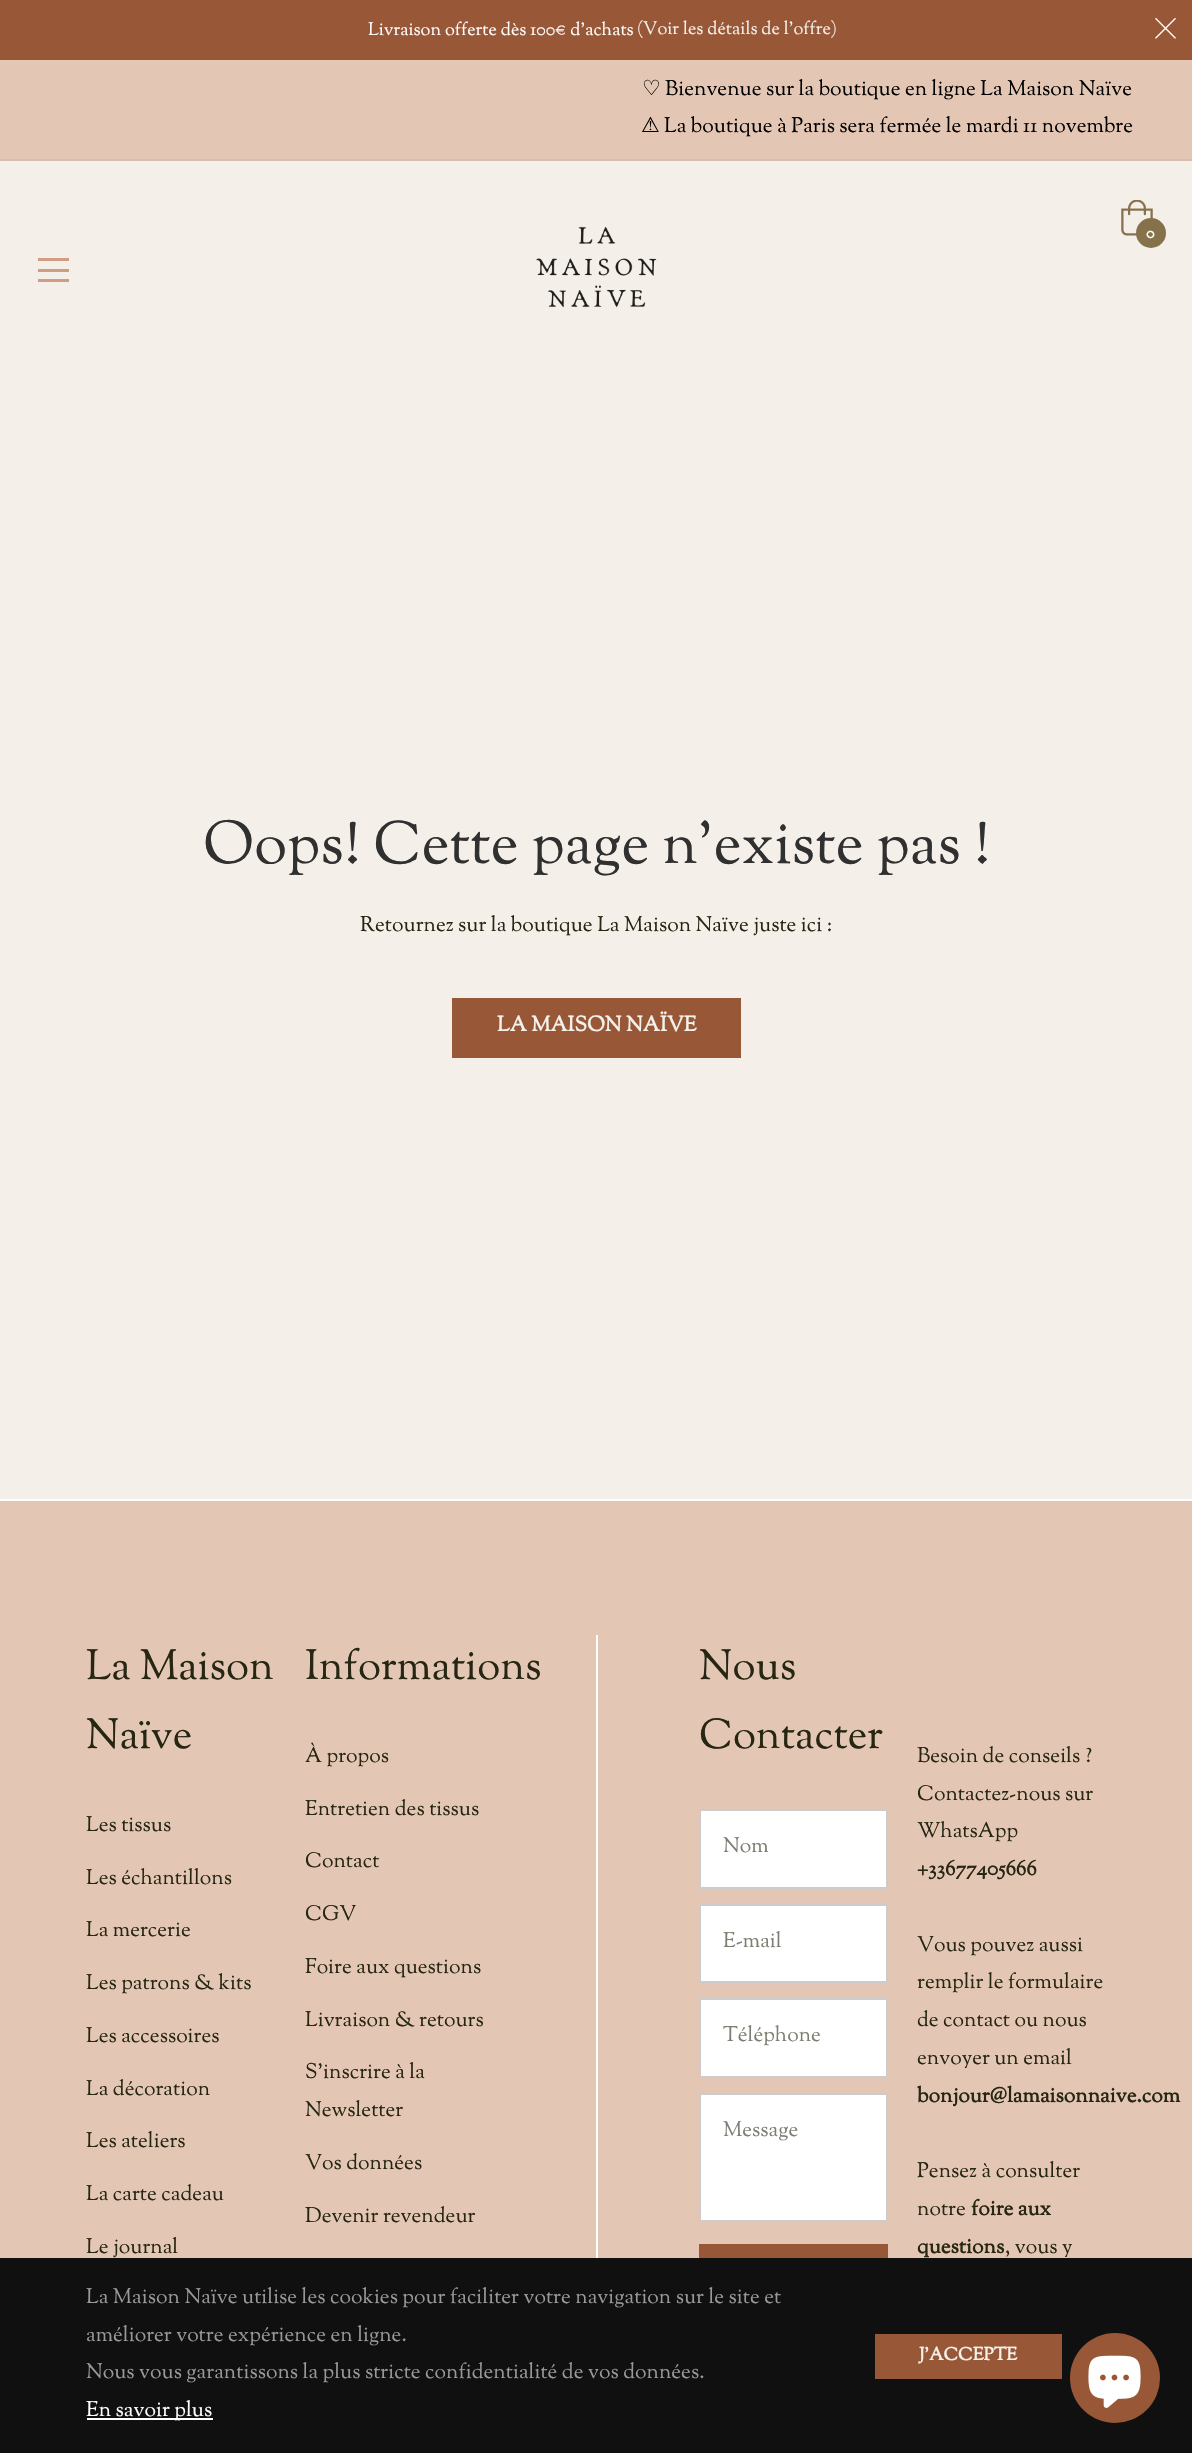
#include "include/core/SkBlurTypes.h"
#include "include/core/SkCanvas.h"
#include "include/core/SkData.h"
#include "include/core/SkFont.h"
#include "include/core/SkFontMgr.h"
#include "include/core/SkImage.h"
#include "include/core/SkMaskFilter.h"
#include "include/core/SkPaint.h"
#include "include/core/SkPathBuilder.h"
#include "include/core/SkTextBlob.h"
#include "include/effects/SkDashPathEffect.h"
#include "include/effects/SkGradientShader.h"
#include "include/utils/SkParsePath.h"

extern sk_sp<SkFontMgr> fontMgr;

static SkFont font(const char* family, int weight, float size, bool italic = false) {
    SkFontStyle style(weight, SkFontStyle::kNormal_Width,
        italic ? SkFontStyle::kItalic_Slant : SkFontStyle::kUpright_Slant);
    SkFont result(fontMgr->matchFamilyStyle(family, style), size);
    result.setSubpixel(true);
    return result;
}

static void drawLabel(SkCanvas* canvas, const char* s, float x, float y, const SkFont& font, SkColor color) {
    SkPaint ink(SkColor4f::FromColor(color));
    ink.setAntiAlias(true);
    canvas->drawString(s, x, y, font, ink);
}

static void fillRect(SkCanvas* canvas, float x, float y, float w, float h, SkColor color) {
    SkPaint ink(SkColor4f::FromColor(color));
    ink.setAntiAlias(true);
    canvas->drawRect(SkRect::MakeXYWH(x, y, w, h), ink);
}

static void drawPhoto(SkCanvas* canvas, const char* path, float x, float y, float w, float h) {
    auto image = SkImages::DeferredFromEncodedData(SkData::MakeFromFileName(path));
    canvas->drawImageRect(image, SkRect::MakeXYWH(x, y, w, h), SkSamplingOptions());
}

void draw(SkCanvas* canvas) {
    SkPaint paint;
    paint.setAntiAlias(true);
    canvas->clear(0xFFF4EFE9);
    fillRect(canvas, 0, 0, 1192, 60, 0xFF985737);
    SkFont font1 = font("Sorts Mill Goudy", 400, 18);
    drawLabel(canvas, "Livraison offerte dès 100€ d'achats", 368, 35, font1, 0xFFFFFFFF);
    drawLabel(canvas, "(Voir les détails de l'offre)", 637, 34, font1, 0xFFF4F1EB);
    drawPhoto(canvas, "assets/img1.png", 1155, 17, 21, 22);
    fillRect(canvas, 0, 60, 1192, 99, 0xFFE3C6B4);
    fillRect(canvas, 0, 159, 1192, 2, 0xFFD8BEAE);
    SkFont font2 = font("DejaVu Sans", 400, 21);
    drawLabel(canvas, "♡", 642, 95, font2, 0xFF000000);
    SkFont font3 = font("Sorts Mill Goudy", 400, 21);
    drawLabel(canvas, "Bienvenue sur la boutique en ligne La Maison Naïve", 665, 95, font3, 0xFF000000);
    drawLabel(canvas, "⚠", 641, 132, font2, 0xFF000000);
    drawLabel(canvas, "La boutique à Paris sera fermée le mardi 11 novembre", 664, 132, font3, 0xFF000000);
    drawPhoto(canvas, "assets/img2.png", 536, 226, 121, 82);
    drawPhoto(canvas, "assets/img3.png", 1121, 200, 32, 36);
    paint.setColor(0xFF86724A);
    canvas->drawCircle(1151, 233, 15, paint);
    SkFont font4 = font("Sorts Mill Goudy", 700, 16);
    drawLabel(canvas, "0", 1146, 238, font4, 0xFFFFFFFF);
    fillRect(canvas, 38, 258, 31, 3, 0xFFD09D83);
    fillRect(canvas, 38, 269, 31, 3, 0xFFD09D83);
    fillRect(canvas, 38, 279, 31, 3, 0xFFD09D83);
    SkFont font5 = font("Sorts Mill Goudy", 400, 60);
    drawLabel(canvas, "Oops! Cette page n'existe pas !", 203, 863, font5, 0xFF303030);
    drawLabel(canvas, "Retournez sur la boutique La Maison Naïve juste ici :", 360, 931, font3, 0xFF262613);
    fillRect(canvas, 452, 998, 289, 60, 0xFF985737);
    SkFont font6 = font("Sorts Mill Goudy", 700, 21);
    drawLabel(canvas, "LA MAISON NAÏVE", 497, 1031, font6, 0xFFF4F1EB);
    fillRect(canvas, 0, 1501, 1192, 757, 0xFFE3C6B4);
    fillRect(canvas, 0, 1499, 1192, 2, 0xFFFFFFFF);
    SkFont font7 = font("Sorts Mill Goudy", 400, 42);
    drawLabel(canvas, "La Maison", 86, 1679, font7, 0xFF262613);
    drawLabel(canvas, "Naïve", 86, 1748, font7, 0xFF262613);
    drawLabel(canvas, "Les tissus", 86, 1831, font3, 0xFF262613);
    drawLabel(canvas, "Les échantillons", 86, 1884, font3, 0xFF262613);
    drawLabel(canvas, "La mercerie", 86, 1936, font3, 0xFF262613);
    drawLabel(canvas, "Les patrons & kits", 86, 1989, font3, 0xFF262613);
    drawLabel(canvas, "Les accessoires", 86, 2042, font3, 0xFF262613);
    drawLabel(canvas, "La décoration", 86, 2095, font3, 0xFF262613);
    drawLabel(canvas, "Les ateliers", 86, 2147, font3, 0xFF262613);
    drawLabel(canvas, "La carte cadeau", 86, 2200, font3, 0xFF262613);
    drawLabel(canvas, "Le journal", 86, 2253, font3, 0xFF262613);
    drawLabel(canvas, "Informations", 305, 1679, font7, 0xFF262613);
    drawLabel(canvas, "À propos", 305, 1762, font3, 0xFF262613);
    drawLabel(canvas, "Entretien des tissus", 305, 1815, font3, 0xFF262613);
    drawLabel(canvas, "Contact", 305, 1867, font3, 0xFF262613);
    drawLabel(canvas, "CGV", 305, 1920, font3, 0xFF262613);
    drawLabel(canvas, "Foire aux questions", 305, 1973, font3, 0xFF262613);
    drawLabel(canvas, "Livraison & retours", 305, 2026, font3, 0xFF262613);
    drawLabel(canvas, "S'inscrire à la", 305, 2078, font3, 0xFF262613);
    drawLabel(canvas, "Newsletter", 305, 2116, font3, 0xFF262613);
    drawLabel(canvas, "Vos données", 305, 2169, font3, 0xFF262613);
    drawLabel(canvas, "Devenir revendeur", 305, 2222, font3, 0xFF262613);
    fillRect(canvas, 596, 1635, 2, 623, 0xFFFFFFFF);
    drawLabel(canvas, "Nous", 699, 1679, font7, 0xFF262613);
    drawLabel(canvas, "Contacter", 699, 1748, font7, 0xFF262613);
    paint.setColor(0xFFFFFFFF);
    canvas->drawRect(SkRect::MakeXYWH(700, 1810, 187, 78), paint);
    paint.setStroke(true);
    paint.setStrokeWidth(2);
    paint.setColor(0xFFCCCCCC);
    canvas->drawRect(SkRect::MakeXYWH(700, 1810, 187, 78), paint);
    drawLabel(canvas, "Nom", 723, 1852, font3, 0xFF7D7D71);
    paint.setStroke(false);
    paint.setColor(0xFFFFFFFF);
    canvas->drawRect(SkRect::MakeXYWH(700, 1905, 187, 77), paint);
    paint.setStroke(true);
    paint.setColor(0xFFCCCCCC);
    canvas->drawRect(SkRect::MakeXYWH(700, 1905, 187, 77), paint);
    drawLabel(canvas, "E-mail", 723, 1947, font3, 0xFF7D7D71);
    paint.setStroke(false);
    paint.setColor(0xFFFFFFFF);
    canvas->drawRect(SkRect::MakeXYWH(700, 1999, 187, 78), paint);
    paint.setStroke(true);
    paint.setColor(0xFFCCCCCC);
    canvas->drawRect(SkRect::MakeXYWH(700, 1999, 187, 78), paint);
    drawLabel(canvas, "Téléphone", 723, 2041, font3, 0xFF7D7D71);
    paint.setStroke(false);
    paint.setColor(0xFFFFFFFF);
    canvas->drawRect(SkRect::MakeXYWH(700, 2094, 187, 127), paint);
    paint.setStroke(true);
    paint.setColor(0xFFCCCCCC);
    canvas->drawRect(SkRect::MakeXYWH(700, 2094, 187, 127), paint);
    drawLabel(canvas, "Message", 723, 2136, font3, 0xFF7D7D71);
    fillRect(canvas, 699, 2244, 189, 14, 0xFF985737);
    drawLabel(canvas, "Besoin de conseils ?", 917, 1762, font3, 0xFF262613);
    drawLabel(canvas, "Contactez-nous sur", 917, 1800, font3, 0xFF262613);
    drawLabel(canvas, "WhatsApp", 917, 1837, font3, 0xFF262613);
    drawLabel(canvas, "+33677405666", 917, 1875, font6, 0xFF262613);
    drawLabel(canvas, "Vous pouvez aussi", 917, 1951, font3, 0xFF262613);
    drawLabel(canvas, "remplir le formulaire", 917, 1988, font3, 0xFF262613);
    drawLabel(canvas, "de contact ou nous", 917, 2026, font3, 0xFF262613);
    drawLabel(canvas, "envoyer un email", 917, 2064, font3, 0xFF262613);
    drawLabel(canvas, "bonjour@lamaisonnaive.com", 917, 2102, font6, 0xFF262613);
    drawLabel(canvas, "Pensez à consulter", 917, 2177, font3, 0xFF262613);
    drawLabel(canvas, "notre", 917, 2215, font3, 0xFF262613);
    drawLabel(canvas, "foire aux", 971, 2215, font6, 0xFF262613);
    drawLabel(canvas, "questions", 917, 2253, font6, 0xFF262613);
    drawLabel(canvas, ", vous y", 1005, 2253, font3, 0xFF262613);
    fillRect(canvas, 0, 2258, 1192, 195, 0xFF101010);
    drawLabel(canvas, "La Maison Naïve utilise les cookies pour faciliter votre navigation sur le site et", 86, 2303, font3, 0xFF999999);
    drawLabel(canvas, "améliorer votre expérience en ligne.", 86, 2341, font3, 0xFF999999);
    drawLabel(canvas, "Nous vous garantissons la plus stricte confidentialité de vos données.", 86, 2378, font3, 0xFF999999);
    fillRect(canvas, 87, 2418, 126, 2, 0xFFFFFFFF);
    drawLabel(canvas, "En savoir plus", 86, 2416, font3, 0xFFFFFFFF);
    fillRect(canvas, 875, 2334, 187, 45, 0xFF985737);
    SkFont font8 = font("Sorts Mill Goudy", 700, 18);
    drawLabel(canvas, "J’ACCEPTE", 919, 2360, font8, 0xFFF4F1EB);
    paint.setStroke(false);
    paint.setColor(0xFF985737);
    canvas->drawCircle(1115, 2378, 45, paint);
    drawPhoto(canvas, "assets/img4.png", 1088, 2355, 53, 53);
}
